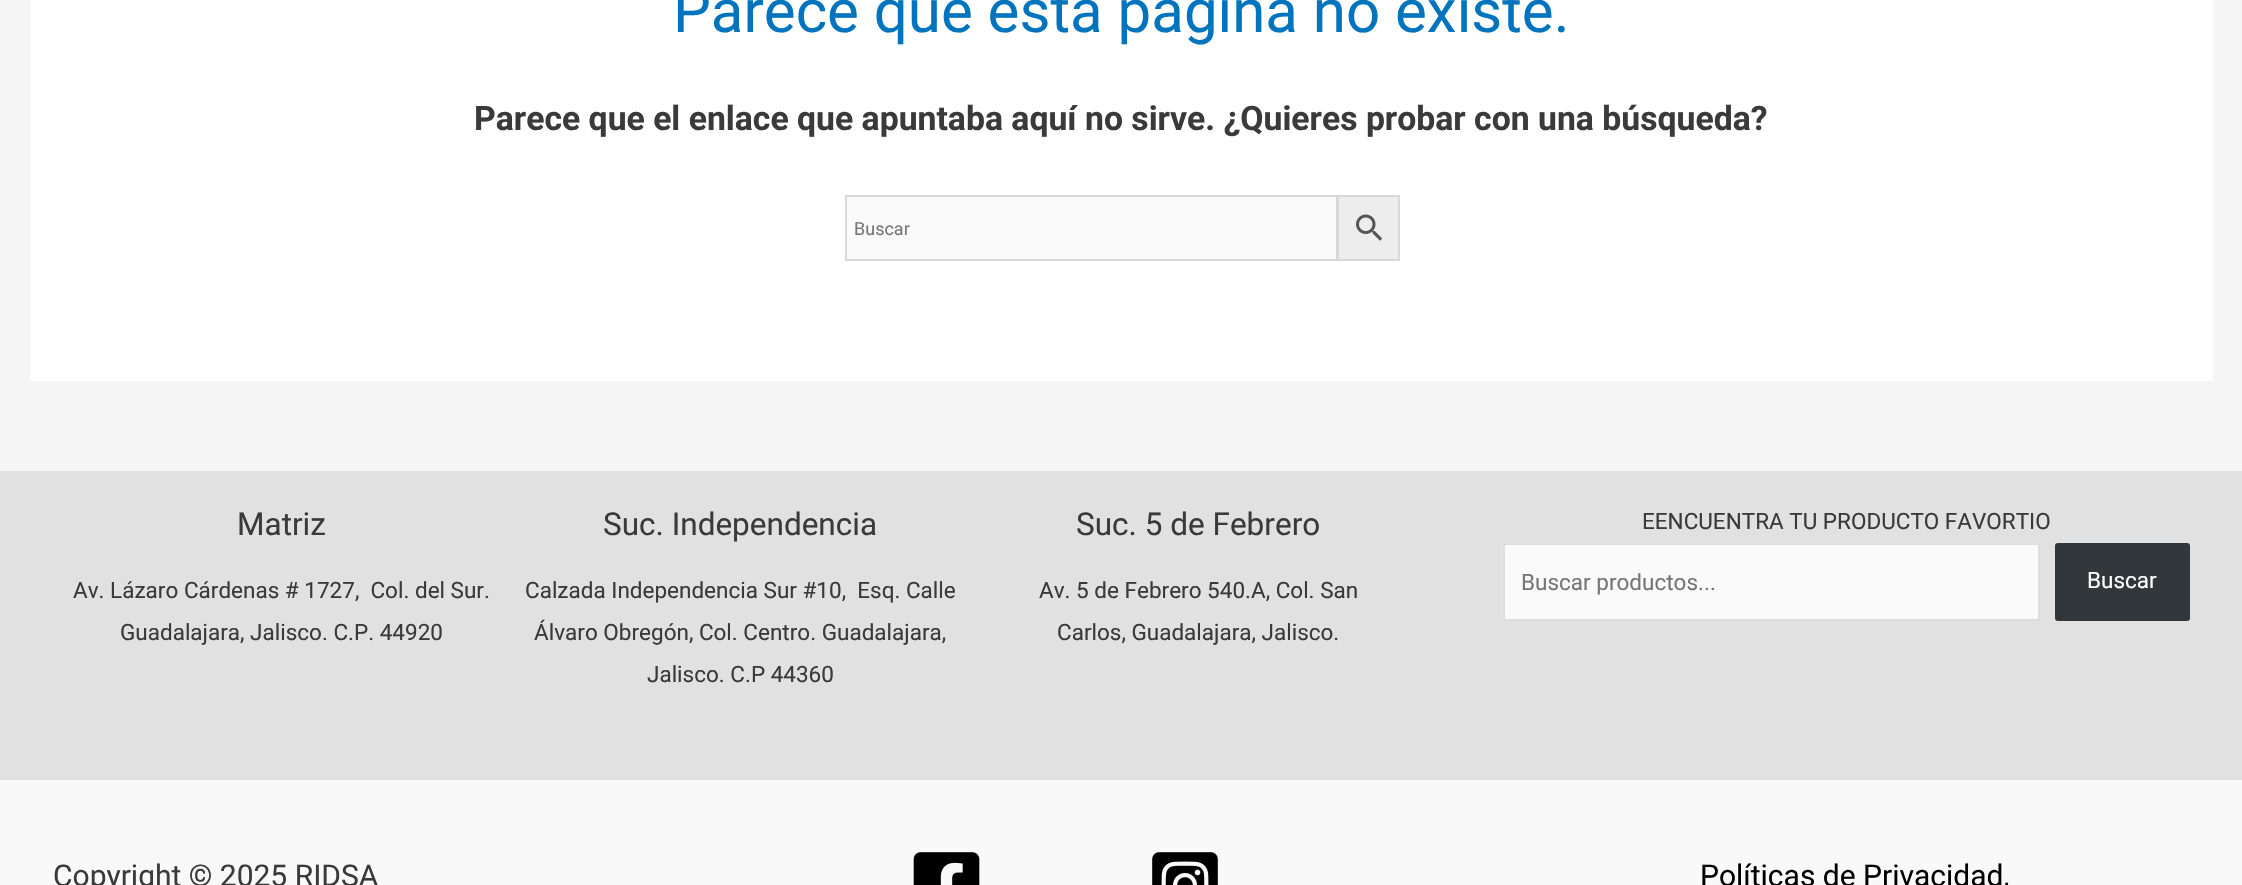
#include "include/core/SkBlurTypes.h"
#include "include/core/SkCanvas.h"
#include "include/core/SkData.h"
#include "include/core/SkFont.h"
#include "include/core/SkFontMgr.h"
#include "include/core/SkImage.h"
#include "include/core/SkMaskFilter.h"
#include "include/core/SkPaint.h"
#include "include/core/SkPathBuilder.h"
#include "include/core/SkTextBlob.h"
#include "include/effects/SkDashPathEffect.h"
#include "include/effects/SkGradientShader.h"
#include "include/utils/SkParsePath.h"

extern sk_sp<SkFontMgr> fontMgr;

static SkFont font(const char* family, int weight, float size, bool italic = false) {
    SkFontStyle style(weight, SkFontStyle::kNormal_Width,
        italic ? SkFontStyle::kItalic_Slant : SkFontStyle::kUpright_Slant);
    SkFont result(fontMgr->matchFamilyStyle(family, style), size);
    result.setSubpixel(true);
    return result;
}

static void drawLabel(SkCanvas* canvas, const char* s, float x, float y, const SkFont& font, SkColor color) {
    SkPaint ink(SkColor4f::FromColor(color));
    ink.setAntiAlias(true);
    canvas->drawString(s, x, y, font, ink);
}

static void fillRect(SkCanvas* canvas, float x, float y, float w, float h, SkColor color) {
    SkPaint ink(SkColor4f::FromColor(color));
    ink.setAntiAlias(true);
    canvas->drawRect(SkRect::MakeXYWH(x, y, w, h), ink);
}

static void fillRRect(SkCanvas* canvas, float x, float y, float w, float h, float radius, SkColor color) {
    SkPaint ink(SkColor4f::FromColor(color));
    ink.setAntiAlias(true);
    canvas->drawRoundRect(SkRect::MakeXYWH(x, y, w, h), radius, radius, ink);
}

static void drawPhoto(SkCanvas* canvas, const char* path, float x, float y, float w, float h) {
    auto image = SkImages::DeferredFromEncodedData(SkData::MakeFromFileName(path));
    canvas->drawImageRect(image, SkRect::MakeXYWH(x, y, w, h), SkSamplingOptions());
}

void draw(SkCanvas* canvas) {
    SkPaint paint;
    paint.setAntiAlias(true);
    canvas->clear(0xFFF5F5F5);
    fillRect(canvas, 30, 0, 2183, 381, 0xFFFFFFFF);
    SkFont font1 = font("Roboto", 400, 60);
    drawLabel(canvas, "Parece que esta página no existe.", 673, 32, font1, 0xFF0274BE);
    SkFont font2 = font("Roboto", 700, 33.75f);
    drawLabel(canvas, "Parece que el enlace que apuntaba aquí no sirve. ¿Quieres probar con una búsqueda?", 474, 130, font2, 0xFF3A3A3A);
    paint.setColor(0xFFEDEDED);
    canvas->drawRect(SkRect::MakeXYWH(1338, 196, 61, 64), paint);
    paint.setStroke(true);
    paint.setStrokeWidth(2);
    paint.setColor(0xFFD8D8D8);
    canvas->drawRect(SkRect::MakeXYWH(1338, 196, 61, 64), paint);
    paint.setStroke(false);
    paint.setColor(0xFFFAFAFA);
    canvas->drawRect(SkRect::MakeXYWH(846, 196, 491, 64), paint);
    paint.setStroke(true);
    paint.setColor(0xFFD8D8D8);
    canvas->drawRect(SkRect::MakeXYWH(846, 196, 491, 64), paint);
    SkFont font3 = font("Roboto", 400, 18);
    drawLabel(canvas, "Buscar", 854, 235, font3, 0xFF757575);
    drawPhoto(canvas, "assets/img1.png", 1356, 214, 27, 27);
    fillRect(canvas, 0, 471, 2242, 309, 0xFFE1E1E1);
    SkFont font4 = font("Roboto", 400, 31.5f);
    drawLabel(canvas, "Matriz", 237, 535, font4, 0xFF3A3A3A);
    SkFont font5 = font("Roboto", 400, 22.5f);
    drawLabel(canvas, "Av. Lázaro Cárdenas # 1727,  Col. del Sur.", 73, 598, font5, 0xFF3A3A3A);
    drawLabel(canvas, "Guadalajara, Jalisco. C.P. 44920", 120, 640, font5, 0xFF3A3A3A);
    drawLabel(canvas, "Suc. Independencia", 603, 535, font4, 0xFF3A3A3A);
    drawLabel(canvas, "Calzada Independencia Sur #10,  Esq. Calle", 525, 598, font5, 0xFF3A3A3A);
    drawLabel(canvas, "Álvaro Obregón, Col. Centro. Guadalajara,", 534, 640, font5, 0xFF3A3A3A);
    drawLabel(canvas, "Jalisco. C.P 44360", 647, 682, font5, 0xFF3A3A3A);
    drawLabel(canvas, "Suc. 5 de Febrero", 1076, 535, font4, 0xFF3A3A3A);
    drawLabel(canvas, "Av. 5 de Febrero 540.A, Col. San", 1039, 598, font5, 0xFF3A3A3A);
    drawLabel(canvas, "Carlos, Guadalajara, Jalisco.", 1057, 640, font5, 0xFF3A3A3A);
    drawLabel(canvas, "EENCUENTRA TU PRODUCTO FAVORTIO", 1642, 529, font5, 0xFF3A3A3A);
    paint.setStroke(false);
    paint.setColor(0xFFFAFAFA);
    canvas->drawRoundRect(SkRect::MakeXYWH(1504, 544, 535, 76), 2, 2, paint);
    paint.setStroke(true);
    paint.setColor(0xFFDDDDDD);
    canvas->drawRoundRect(SkRect::MakeXYWH(1504, 544, 535, 76), 2, 2, paint);
    drawLabel(canvas, "Buscar productos...", 1521, 590, font5, 0xFF757575);
    fillRRect(canvas, 2055, 543, 135, 78, 3, 0xFF32373C);
    drawLabel(canvas, "Buscar", 2087, 588, font5, 0xFFFFFFFF);
    fillRect(canvas, 0, 780, 2242, 105, 0xFFF9F9F9);
    SkFont font6 = font("Roboto", 400, 30);
    drawLabel(canvas, "Copyright © 2025 RIDSA", 53, 886, font6, 0xFF3A3A3A);
    drawPhoto(canvas, "assets/img2.png", 913, 852, 67, 33);
    drawPhoto(canvas, "assets/img3.png", 1152, 852, 66, 33);
    drawLabel(canvas, "Políticas de Privacidad,", 1700, 886, font6, 0xFF000000);
}
